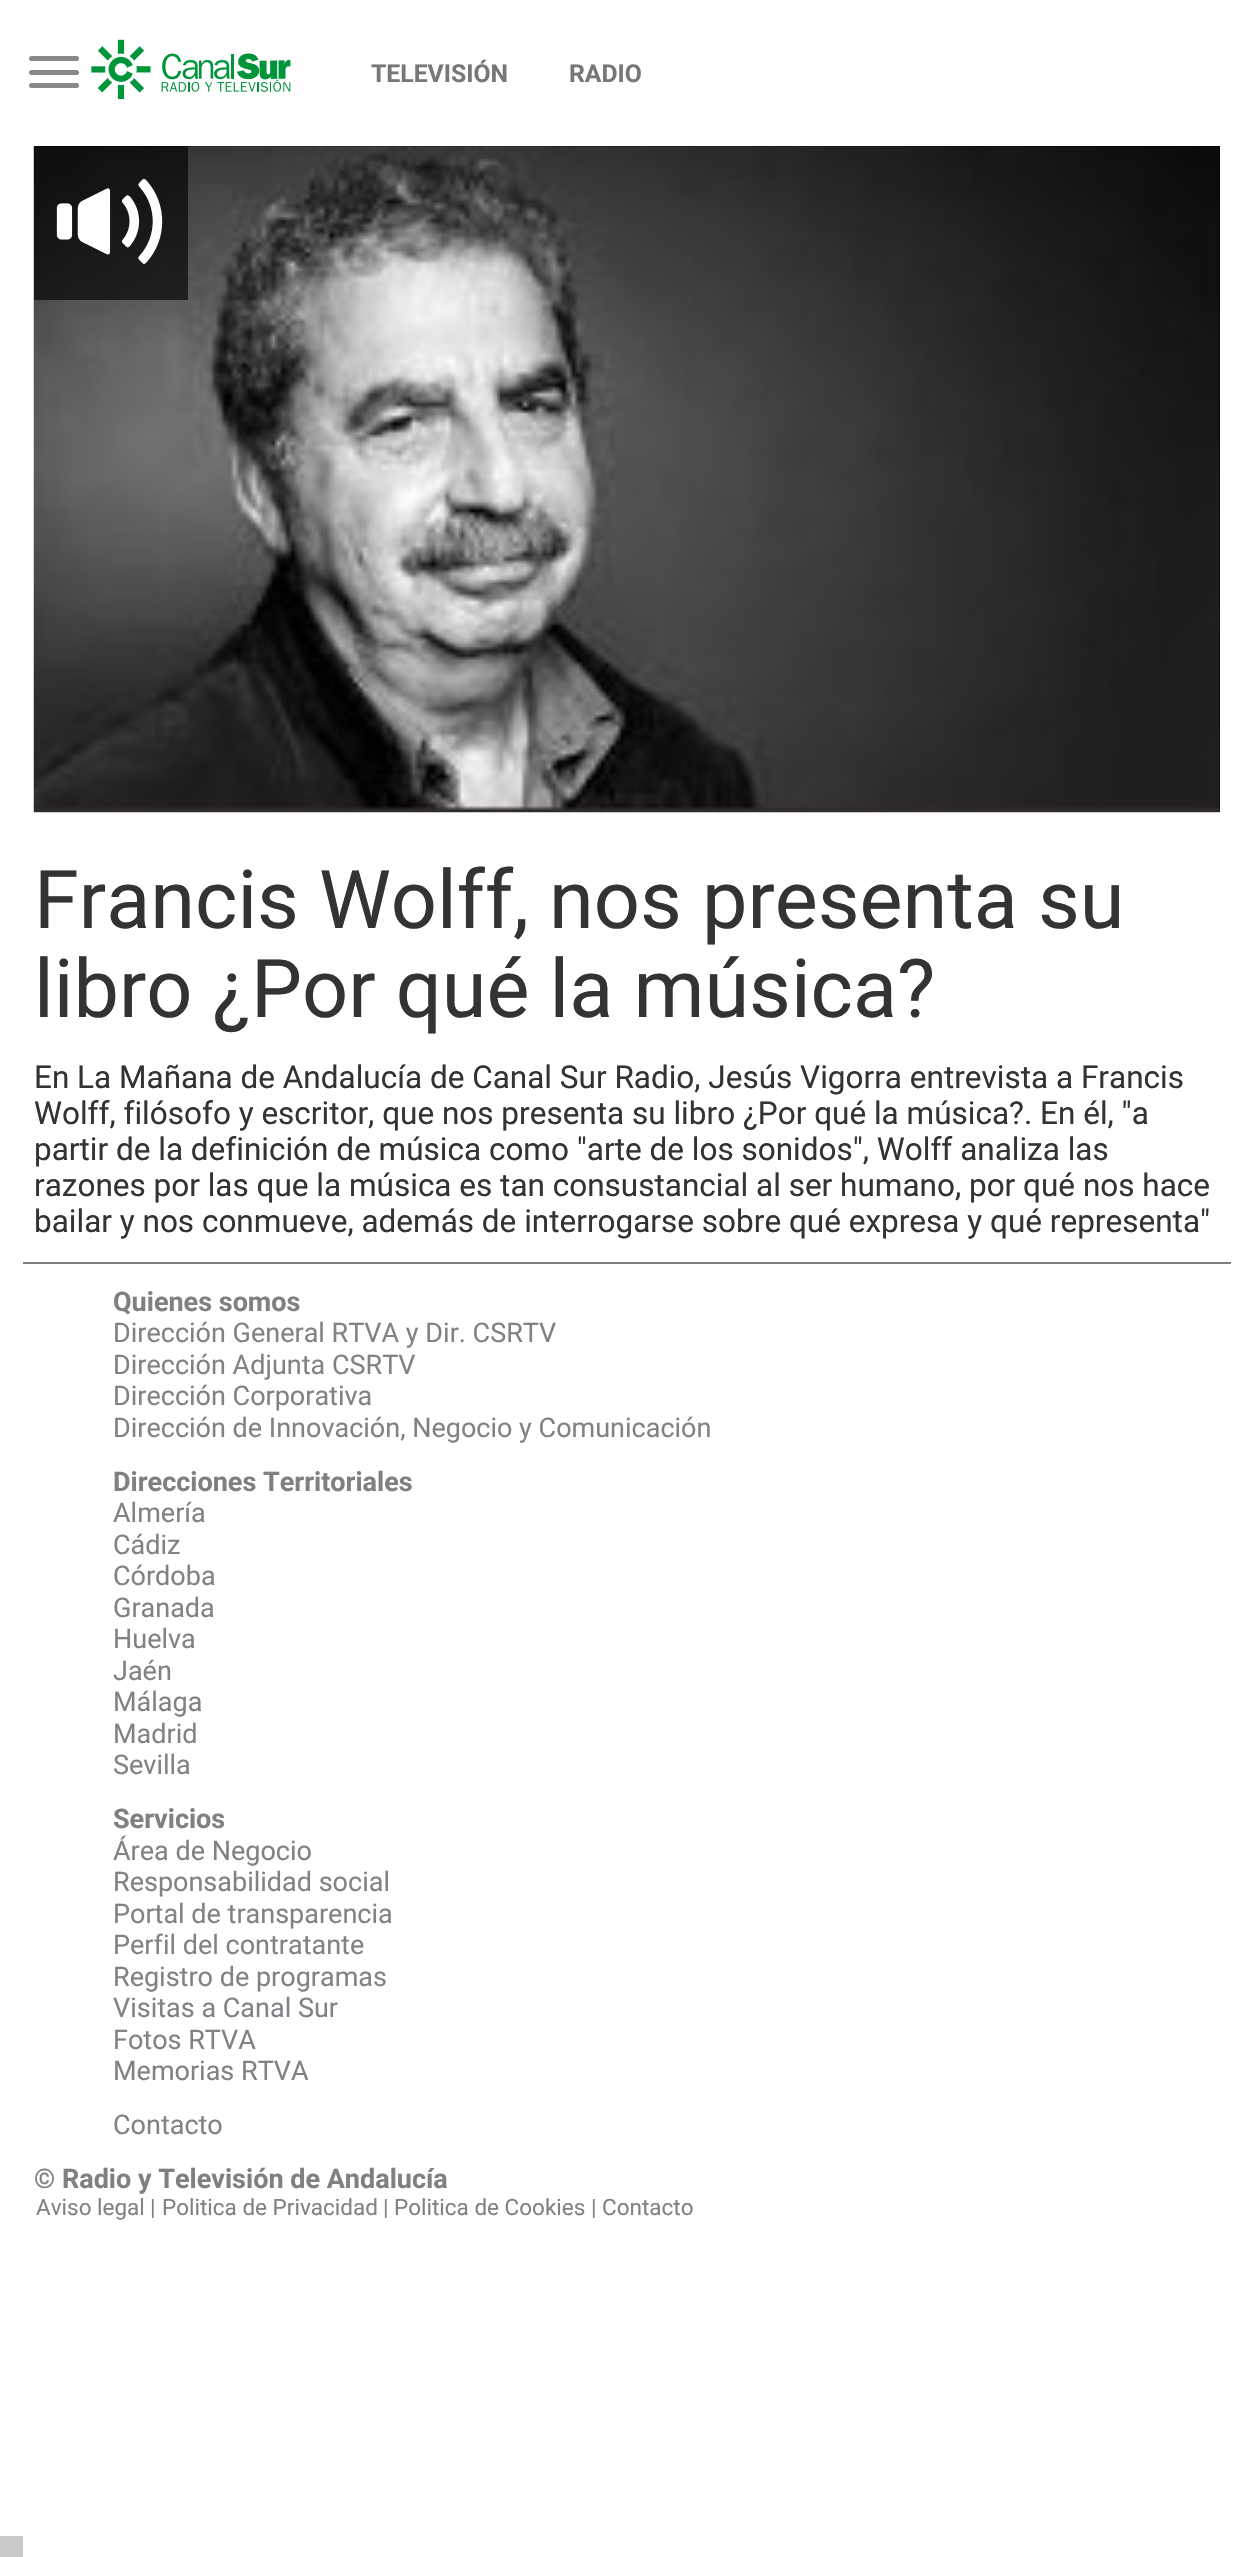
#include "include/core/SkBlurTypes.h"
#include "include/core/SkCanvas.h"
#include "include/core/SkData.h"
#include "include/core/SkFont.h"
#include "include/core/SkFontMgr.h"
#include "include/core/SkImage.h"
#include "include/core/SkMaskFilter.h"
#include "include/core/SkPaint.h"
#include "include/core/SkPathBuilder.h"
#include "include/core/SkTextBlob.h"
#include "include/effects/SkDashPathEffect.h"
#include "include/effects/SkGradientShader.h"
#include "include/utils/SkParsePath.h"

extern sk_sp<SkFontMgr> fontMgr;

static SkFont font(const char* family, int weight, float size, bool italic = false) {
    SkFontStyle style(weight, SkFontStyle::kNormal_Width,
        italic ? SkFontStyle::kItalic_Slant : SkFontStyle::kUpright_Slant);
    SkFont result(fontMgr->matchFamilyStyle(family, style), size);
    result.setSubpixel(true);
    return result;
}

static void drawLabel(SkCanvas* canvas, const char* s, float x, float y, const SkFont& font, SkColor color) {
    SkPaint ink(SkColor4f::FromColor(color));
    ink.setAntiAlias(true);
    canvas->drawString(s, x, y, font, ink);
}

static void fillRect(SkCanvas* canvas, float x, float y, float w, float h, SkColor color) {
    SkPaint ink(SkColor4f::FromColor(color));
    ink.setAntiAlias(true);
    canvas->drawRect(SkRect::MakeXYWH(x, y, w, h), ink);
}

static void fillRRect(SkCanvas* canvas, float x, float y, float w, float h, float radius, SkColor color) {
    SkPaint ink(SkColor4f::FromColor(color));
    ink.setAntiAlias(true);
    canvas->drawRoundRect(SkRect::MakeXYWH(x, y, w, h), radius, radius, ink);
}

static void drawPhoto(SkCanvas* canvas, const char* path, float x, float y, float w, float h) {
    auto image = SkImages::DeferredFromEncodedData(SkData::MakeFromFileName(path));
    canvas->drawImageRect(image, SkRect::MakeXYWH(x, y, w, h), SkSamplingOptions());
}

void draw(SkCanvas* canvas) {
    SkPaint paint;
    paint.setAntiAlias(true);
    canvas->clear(0xFFFFFFFF);
    fillRRect(canvas, 29, 56, 50, 5, 2.5f, 0xFF888888);
    fillRRect(canvas, 29, 70, 50, 5, 2.5f, 0xFF888888);
    fillRRect(canvas, 29, 83, 50, 5, 2.5f, 0xFF888888);
    drawPhoto(canvas, "assets/img1.png", 91, 39, 200, 60);
    SkFont font1 = font("Roboto", 700, 24.75f);
    drawLabel(canvas, "TELEVISIÓN", 371, 82, font1, 0xFF777777);
    drawLabel(canvas, "RADIO", 569, 82, font1, 0xFF777777);
    fillRect(canvas, 34, 146, 1186, 666, 0xFF000000);
    drawPhoto(canvas, "assets/img2.png", 33, 146, 1187, 667);
    drawPhoto(canvas, "assets/img3.png", 34, 146, 154, 154);
    SkFont font2 = font("Roboto", 400, 81);
    drawLabel(canvas, "Francis Wolff, nos presenta su", 34, 928, font2, 0xFF333333);
    drawLabel(canvas, "libro ¿Por qué la música?", 34, 1017, font2, 0xFF333333);
    SkFont font3 = font("Roboto", 400, 31.5f);
    drawLabel(canvas, "En La Mañana de Andalucía de Canal Sur Radio, Jesús Vigorra entrevista a Francis", 34, 1088, font3, 0xFF333333);
    drawLabel(canvas, "Wolff, filósofo y escritor, que nos presenta su libro ¿Por qué la música?. En él, \"a", 34, 1124, font3, 0xFF333333);
    drawLabel(canvas, "partir de la definición de música como \"arte de los sonidos\", Wolff analiza las", 34, 1160, font3, 0xFF333333);
    drawLabel(canvas, "razones por las que la música es tan consustancial al ser humano, por qué nos hace", 34, 1196, font3, 0xFF333333);
    drawLabel(canvas, "bailar y nos conmueve, además de interrogarse sobre qué expresa y qué representa\"", 34, 1232, font3, 0xFF333333);
    fillRect(canvas, 23, 1262, 1208, 2, 0xFF808080);
    SkFont font4 = font("Roboto", 700, 27);
    drawLabel(canvas, "Quienes somos", 113, 1311, font4, 0xFF808080);
    SkFont font5 = font("Roboto", 400, 27);
    drawLabel(canvas, "Dirección General RTVA y Dir. CSRTV", 113, 1342, font5, 0xFF818286);
    drawLabel(canvas, "Dirección Adjunta CSRTV", 113, 1374, font5, 0xFF818286);
    drawLabel(canvas, "Dirección Corporativa", 113, 1405, font5, 0xFF818286);
    drawLabel(canvas, "Dirección de Innovación, Negocio y Comunicación", 113, 1437, font5, 0xFF818286);
    drawLabel(canvas, "Direcciones Territoriales", 113, 1491, font4, 0xFF808080);
    drawLabel(canvas, "Almería", 113, 1522, font5, 0xFF818286);
    drawLabel(canvas, "Cádiz", 113, 1554, font5, 0xFF818286);
    drawLabel(canvas, "Córdoba", 113, 1585, font5, 0xFF818286);
    drawLabel(canvas, "Granada", 113, 1617, font5, 0xFF818286);
    drawLabel(canvas, "Huelva", 113, 1648, font5, 0xFF818286);
    drawLabel(canvas, "Jaén", 113, 1680, font5, 0xFF818286);
    drawLabel(canvas, "Málaga", 113, 1711, font5, 0xFF818286);
    drawLabel(canvas, "Madrid", 113, 1743, font5, 0xFF818286);
    drawLabel(canvas, "Sevilla", 113, 1774, font5, 0xFF818286);
    drawLabel(canvas, "Servicios", 113, 1828, font4, 0xFF808080);
    drawLabel(canvas, "Área de Negocio", 113, 1860, font5, 0xFF818286);
    drawLabel(canvas, "Responsabilidad social", 113, 1891, font5, 0xFF818286);
    drawLabel(canvas, "Portal de transparencia", 113, 1923, font5, 0xFF818286);
    drawLabel(canvas, "Perfil del contratante", 113, 1954, font5, 0xFF818286);
    drawLabel(canvas, "Registro de programas", 113, 1986, font5, 0xFF818286);
    drawLabel(canvas, "Visitas a Canal Sur", 113, 2017, font5, 0xFF818286);
    drawLabel(canvas, "Fotos RTVA", 113, 2049, font5, 0xFF818286);
    drawLabel(canvas, "Memorias RTVA", 113, 2080, font5, 0xFF818286);
    drawLabel(canvas, "Contacto", 113, 2134, font5, 0xFF818286);
    drawLabel(canvas, "© Radio y Televisión de Andalucía", 34, 2188, font4, 0xFF808080);
    SkFont font6 = font("Roboto", 400, 22.5f);
    drawLabel(canvas, "Aviso legal", 36, 2215, font6, 0xFF818286);
    drawLabel(canvas, "|", 150, 2215, font6, 0xFF808080);
    drawLabel(canvas, "Politica de Privacidad", 162, 2215, font6, 0xFF818286);
    drawLabel(canvas, "|", 383, 2215, font6, 0xFF808080);
    drawLabel(canvas, "Politica de Cookies", 394, 2215, font6, 0xFF818286);
    drawLabel(canvas, "|", 591, 2215, font6, 0xFF808080);
    drawLabel(canvas, "Contacto", 602, 2215, font6, 0xFF818286);
    fillRect(canvas, 0, 2536, 23, 21, 0xFFCACACA);
}
